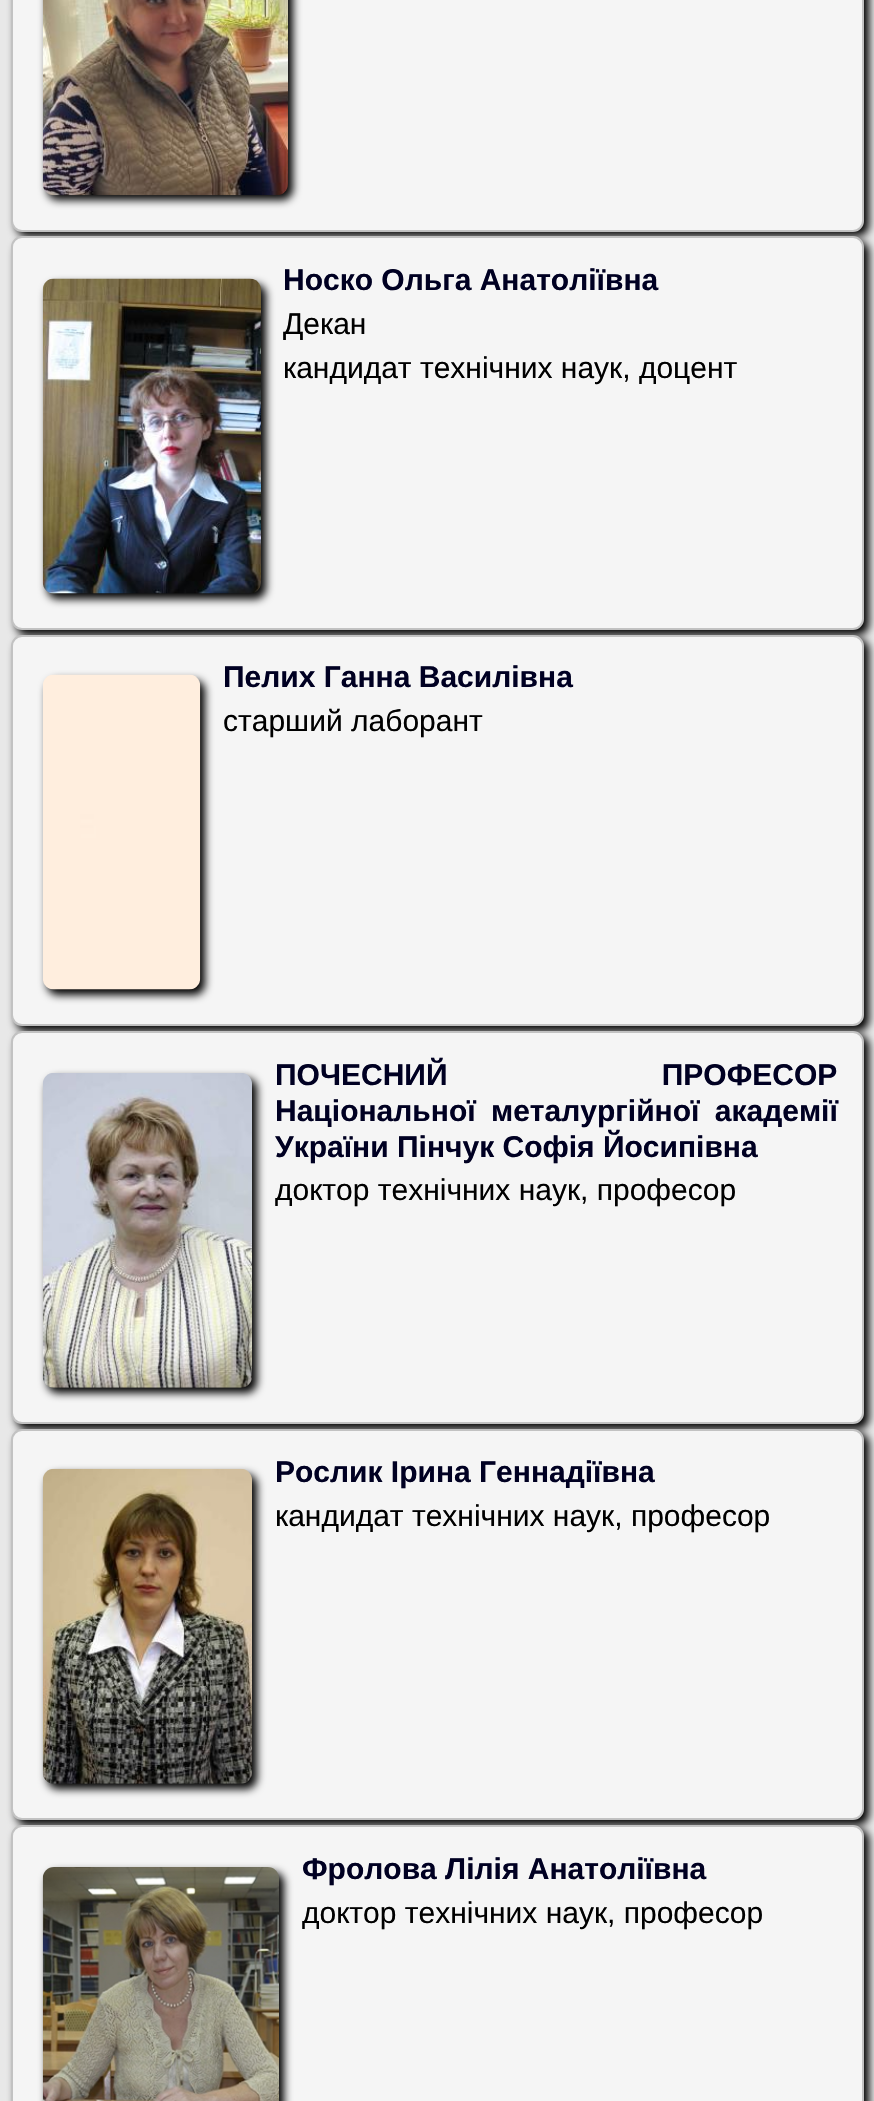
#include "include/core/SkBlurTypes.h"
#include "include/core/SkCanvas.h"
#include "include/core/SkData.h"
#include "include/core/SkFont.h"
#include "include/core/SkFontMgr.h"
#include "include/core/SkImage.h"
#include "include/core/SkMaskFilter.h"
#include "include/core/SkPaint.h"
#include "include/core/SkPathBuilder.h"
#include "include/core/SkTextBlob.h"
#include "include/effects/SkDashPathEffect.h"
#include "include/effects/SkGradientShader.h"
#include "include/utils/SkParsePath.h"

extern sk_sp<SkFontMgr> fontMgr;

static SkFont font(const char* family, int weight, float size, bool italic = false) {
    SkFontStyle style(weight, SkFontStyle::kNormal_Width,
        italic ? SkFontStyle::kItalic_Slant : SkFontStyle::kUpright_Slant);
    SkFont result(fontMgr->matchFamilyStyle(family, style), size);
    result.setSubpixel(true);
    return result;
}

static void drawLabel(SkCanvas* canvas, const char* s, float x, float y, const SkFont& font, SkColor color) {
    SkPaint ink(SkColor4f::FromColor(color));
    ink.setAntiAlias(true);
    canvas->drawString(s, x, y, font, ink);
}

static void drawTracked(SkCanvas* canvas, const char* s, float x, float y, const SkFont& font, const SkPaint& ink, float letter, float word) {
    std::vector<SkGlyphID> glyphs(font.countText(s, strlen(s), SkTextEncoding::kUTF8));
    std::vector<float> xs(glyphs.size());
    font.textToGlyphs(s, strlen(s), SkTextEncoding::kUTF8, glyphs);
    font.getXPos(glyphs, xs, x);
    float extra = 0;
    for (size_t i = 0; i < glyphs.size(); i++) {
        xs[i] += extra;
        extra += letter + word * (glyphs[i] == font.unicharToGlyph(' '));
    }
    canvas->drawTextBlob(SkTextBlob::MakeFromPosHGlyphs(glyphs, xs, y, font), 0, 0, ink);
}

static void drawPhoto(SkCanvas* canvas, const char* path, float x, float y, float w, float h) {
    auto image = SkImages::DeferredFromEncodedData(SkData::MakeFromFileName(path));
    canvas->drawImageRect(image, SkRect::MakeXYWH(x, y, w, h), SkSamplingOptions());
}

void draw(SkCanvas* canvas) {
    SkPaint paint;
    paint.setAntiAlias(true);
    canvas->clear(0xFFE8E8E8);
    paint.setColor(0xFF000000);
    paint.setMaskFilter(SkMaskFilter::MakeBlur(kNormal_SkBlurStyle, 4.5f));
    canvas->drawRoundRect(SkRect::MakeXYWH(16, -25, 853, 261), 11, 11, paint);
    paint.setMaskFilter(nullptr);
    paint.setColor(0xFFF5F5F5);
    canvas->drawRoundRect(SkRect::MakeXYWH(12, -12, 851, 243), 10, 10, paint);
    paint.setStroke(true);
    paint.setStrokeWidth(2);
    paint.setColor(0xFFC2C2C2);
    canvas->drawRoundRect(SkRect::MakeXYWH(12, -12, 851, 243), 10, 10, paint);
    paint.setStroke(false);
    paint.setColor(0xFF000000);
    paint.setMaskFilter(SkMaskFilter::MakeBlur(kNormal_SkBlurStyle, 4.5f));
    canvas->drawRoundRect(SkRect::MakeXYWH(47, -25, 246, 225), 11, 11, paint);
    paint.setMaskFilter(nullptr);
    drawPhoto(canvas, "assets/img1.png", 42, 0, 246, 196);
    paint.setMaskFilter(SkMaskFilter::MakeBlur(kNormal_SkBlurStyle, 4.5f));
    canvas->drawRoundRect(SkRect::MakeXYWH(16, 241, 853, 394), 11, 11, paint);
    paint.setMaskFilter(nullptr);
    paint.setColor(0xFFF5F5F5);
    canvas->drawRoundRect(SkRect::MakeXYWH(12, 237, 851, 392), 10, 10, paint);
    paint.setStroke(true);
    paint.setColor(0xFFC2C2C2);
    canvas->drawRoundRect(SkRect::MakeXYWH(12, 237, 851, 392), 10, 10, paint);
    paint.setStroke(false);
    paint.setColor(0xFF000000);
    paint.setMaskFilter(SkMaskFilter::MakeBlur(kNormal_SkBlurStyle, 4.5f));
    canvas->drawRoundRect(SkRect::MakeXYWH(47, 284, 219, 315), 11, 11, paint);
    paint.setMaskFilter(nullptr);
    drawPhoto(canvas, "assets/img2.png", 42, 278, 219, 316);
    SkFont font1 = font("Liberation Sans", 700, 30);
    drawLabel(canvas, "Носко Ольга Анатоліївна", 283, 290, font1, 0xFF000022);
    SkFont font2 = font("Liberation Sans", 400, 30);
    drawLabel(canvas, "Декан", 283, 334, font2, 0xFF000000);
    drawLabel(canvas, "кандидат технічних наук, доцент", 283, 378, font2, 0xFF000000);
    paint.setMaskFilter(SkMaskFilter::MakeBlur(kNormal_SkBlurStyle, 4.5f));
    canvas->drawRoundRect(SkRect::MakeXYWH(16, 639, 853, 392), 11, 11, paint);
    paint.setMaskFilter(nullptr);
    paint.setColor(0xFFF5F5F5);
    canvas->drawRoundRect(SkRect::MakeXYWH(12, 636, 851, 389), 10, 10, paint);
    paint.setStroke(true);
    paint.setColor(0xFFC2C2C2);
    canvas->drawRoundRect(SkRect::MakeXYWH(12, 636, 851, 389), 10, 10, paint);
    paint.setStroke(false);
    paint.setColor(0xFF000000);
    paint.setMaskFilter(SkMaskFilter::MakeBlur(kNormal_SkBlurStyle, 4.5f));
    canvas->drawRoundRect(SkRect::MakeXYWH(47, 680, 158, 315), 11, 11, paint);
    paint.setMaskFilter(nullptr);
    drawPhoto(canvas, "assets/img3.png", 43, 674, 158, 316);
    drawLabel(canvas, "Пелих Ганна Василівна", 223, 687, font1, 0xFF000022);
    drawLabel(canvas, "старший лаборант", 223, 731, font2, 0xFF000000);
    paint.setMaskFilter(SkMaskFilter::MakeBlur(kNormal_SkBlurStyle, 4.5f));
    canvas->drawRoundRect(SkRect::MakeXYWH(16, 1035, 853, 394), 11, 11, paint);
    paint.setMaskFilter(nullptr);
    paint.setColor(0xFFF5F5F5);
    canvas->drawRoundRect(SkRect::MakeXYWH(12, 1032, 851, 391), 10, 10, paint);
    paint.setStroke(true);
    paint.setColor(0xFFC2C2C2);
    canvas->drawRoundRect(SkRect::MakeXYWH(12, 1032, 851, 391), 10, 10, paint);
    paint.setStroke(false);
    paint.setColor(0xFF000000);
    paint.setMaskFilter(SkMaskFilter::MakeBlur(kNormal_SkBlurStyle, 4.5f));
    canvas->drawRoundRect(SkRect::MakeXYWH(47, 1078, 210, 315), 11, 11, paint);
    paint.setMaskFilter(nullptr);
    drawPhoto(canvas, "assets/img4.png", 42, 1073, 210, 315);
    paint.setColor(0xFF000022);
    drawTracked(canvas, "ПОЧЕСНИЙ ПРОФЕСОР", 275, 1085, font1, paint, 0, 206);
    drawTracked(canvas, "Національної металургійної академії", 275, 1121, font1, paint, 0, 7);
    drawLabel(canvas, "України Пінчук Софія Йосипівна", 275, 1157, font1, 0xFF000022);
    drawLabel(canvas, "доктор технічних наук, професор", 275, 1200, font2, 0xFF000000);
    paint.setColor(0xFF000000);
    paint.setMaskFilter(SkMaskFilter::MakeBlur(kNormal_SkBlurStyle, 4.5f));
    canvas->drawRoundRect(SkRect::MakeXYWH(16, 1433, 853, 392), 11, 11, paint);
    paint.setMaskFilter(nullptr);
    paint.setColor(0xFFF5F5F5);
    canvas->drawRoundRect(SkRect::MakeXYWH(12, 1430, 851, 389), 10, 10, paint);
    paint.setStroke(true);
    paint.setColor(0xFFC2C2C2);
    canvas->drawRoundRect(SkRect::MakeXYWH(12, 1430, 851, 389), 10, 10, paint);
    paint.setStroke(false);
    paint.setColor(0xFF000000);
    paint.setMaskFilter(SkMaskFilter::MakeBlur(kNormal_SkBlurStyle, 4.5f));
    canvas->drawRoundRect(SkRect::MakeXYWH(47, 1474, 210, 315), 11, 11, paint);
    paint.setMaskFilter(nullptr);
    drawPhoto(canvas, "assets/img5.png", 42, 1468, 210, 316);
    drawLabel(canvas, "Рослик Ірина Геннадіївна", 275, 1482, font1, 0xFF000022);
    drawLabel(canvas, "кандидат технічних наук, професор", 275, 1526, font2, 0xFF000000);
    paint.setMaskFilter(SkMaskFilter::MakeBlur(kNormal_SkBlurStyle, 4.5f));
    canvas->drawRoundRect(SkRect::MakeXYWH(16, 1829, 853, 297), 11, 11, paint);
    paint.setMaskFilter(nullptr);
    paint.setColor(0xFFF5F5F5);
    canvas->drawRoundRect(SkRect::MakeXYWH(12, 1826, 851, 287), 10, 10, paint);
    paint.setStroke(true);
    paint.setColor(0xFFC2C2C2);
    canvas->drawRoundRect(SkRect::MakeXYWH(12, 1826, 851, 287), 10, 10, paint);
    paint.setStroke(false);
    paint.setColor(0xFF000000);
    paint.setMaskFilter(SkMaskFilter::MakeBlur(kNormal_SkBlurStyle, 4.5f));
    canvas->drawRoundRect(SkRect::MakeXYWH(47, 1872, 237, 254), 11, 11, paint);
    paint.setMaskFilter(nullptr);
    drawPhoto(canvas, "assets/img6.png", 42, 1867, 237, 234);
    drawLabel(canvas, "Фролова Лілія Анатоліївна", 302, 1879, font1, 0xFF000022);
    drawLabel(canvas, "доктор технічних наук, професор", 302, 1923, font2, 0xFF000000);
}
